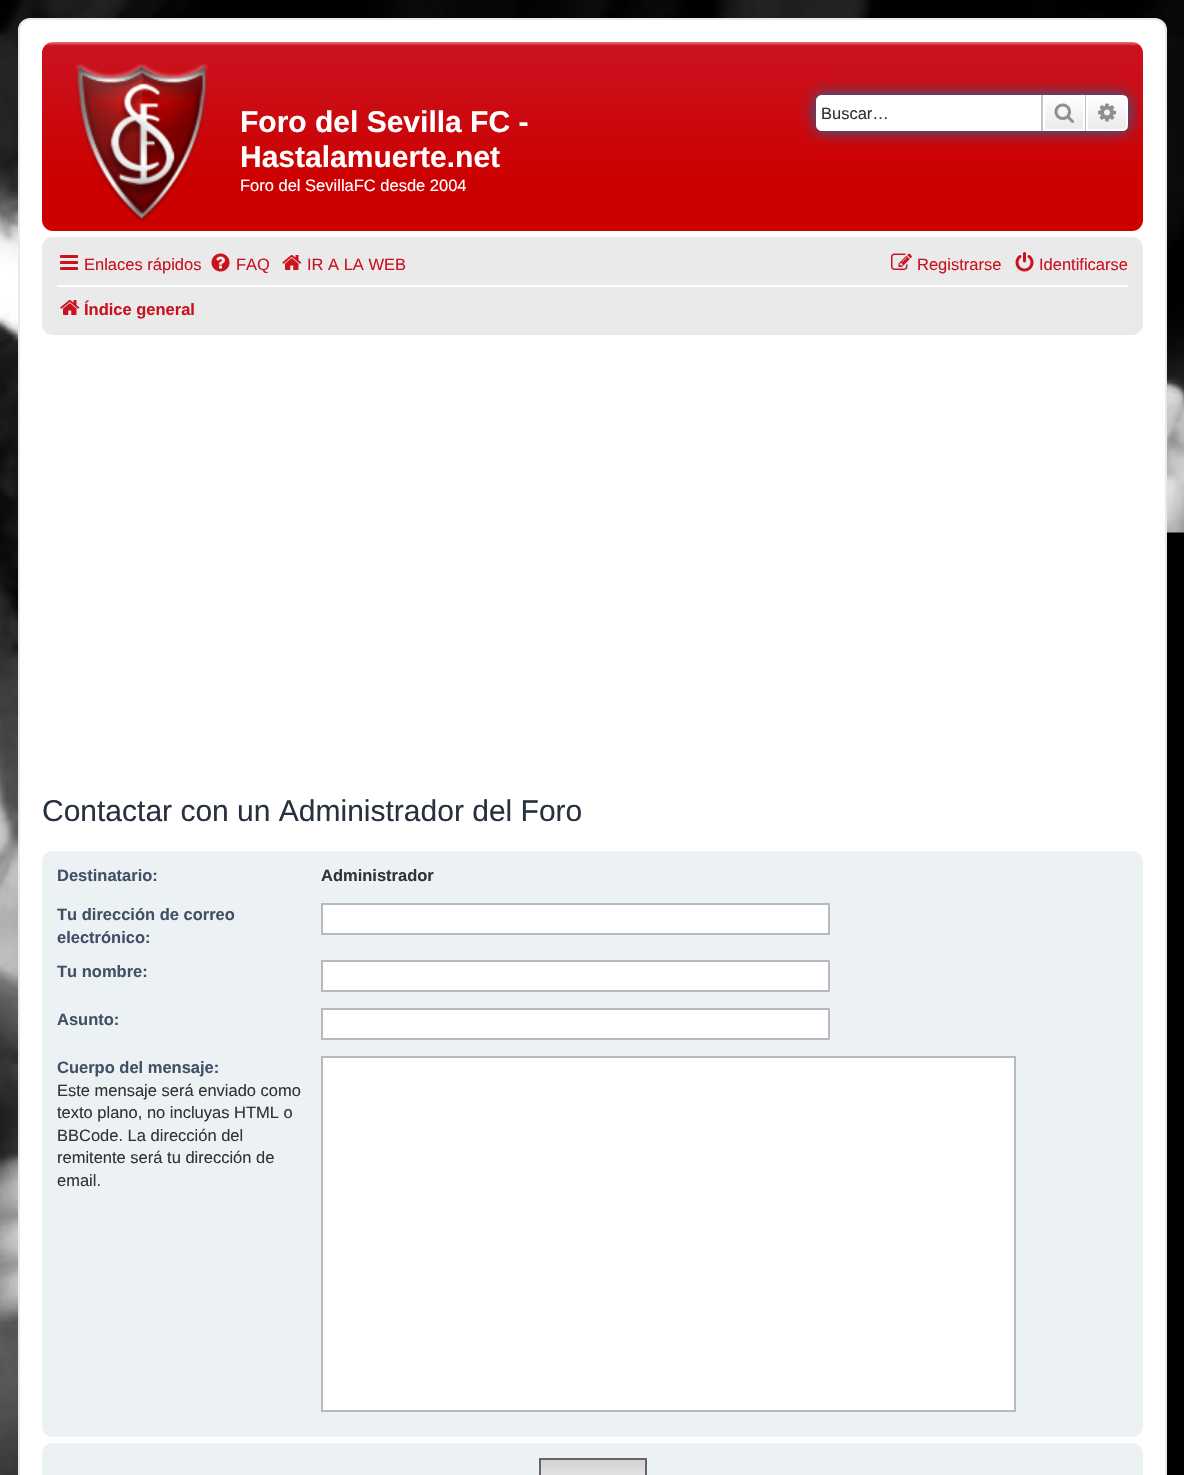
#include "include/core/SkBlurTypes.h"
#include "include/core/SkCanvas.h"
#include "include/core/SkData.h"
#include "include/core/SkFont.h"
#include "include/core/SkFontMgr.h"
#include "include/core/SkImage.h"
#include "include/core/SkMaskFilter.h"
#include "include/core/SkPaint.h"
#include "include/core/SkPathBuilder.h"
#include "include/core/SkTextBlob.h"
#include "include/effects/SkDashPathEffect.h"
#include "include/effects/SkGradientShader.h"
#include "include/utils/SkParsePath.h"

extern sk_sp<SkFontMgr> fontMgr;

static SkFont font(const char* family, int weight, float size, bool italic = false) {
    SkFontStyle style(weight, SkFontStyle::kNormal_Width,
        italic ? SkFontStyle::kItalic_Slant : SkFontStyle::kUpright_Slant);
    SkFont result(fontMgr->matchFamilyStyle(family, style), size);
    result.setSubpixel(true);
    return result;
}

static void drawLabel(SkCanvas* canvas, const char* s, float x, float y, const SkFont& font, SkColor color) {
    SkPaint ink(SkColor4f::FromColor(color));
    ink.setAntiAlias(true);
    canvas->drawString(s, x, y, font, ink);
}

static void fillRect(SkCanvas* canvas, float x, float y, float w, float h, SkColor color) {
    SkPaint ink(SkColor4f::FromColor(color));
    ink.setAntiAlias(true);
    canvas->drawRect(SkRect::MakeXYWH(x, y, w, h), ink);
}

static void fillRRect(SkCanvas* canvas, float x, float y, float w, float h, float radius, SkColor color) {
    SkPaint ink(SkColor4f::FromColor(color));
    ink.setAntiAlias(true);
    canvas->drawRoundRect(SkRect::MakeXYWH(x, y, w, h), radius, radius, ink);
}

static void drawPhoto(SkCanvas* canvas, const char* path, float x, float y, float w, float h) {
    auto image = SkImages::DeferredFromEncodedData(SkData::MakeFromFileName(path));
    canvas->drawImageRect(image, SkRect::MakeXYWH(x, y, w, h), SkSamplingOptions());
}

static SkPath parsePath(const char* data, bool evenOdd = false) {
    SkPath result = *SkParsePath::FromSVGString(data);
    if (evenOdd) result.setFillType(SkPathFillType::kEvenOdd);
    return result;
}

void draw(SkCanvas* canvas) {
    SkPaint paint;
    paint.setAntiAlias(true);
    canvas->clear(0xFFFFFFFF);
    drawPhoto(canvas, "assets/img1.png", 0, 0, 1184, 1475);
    paint.setColor(0xFFFFFFFF);
    canvas->drawRoundRect(SkRect::MakeXYWH(19, 19, 1147, 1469), 11, 11, paint);
    paint.setStroke(true);
    paint.setStrokeWidth(2);
    paint.setColor(0xFFE6E9ED);
    canvas->drawRoundRect(SkRect::MakeXYWH(19, 19, 1147, 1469), 11, 11, paint);
    paint.setStroke(false);
    {
        const SkColor colors[] = {0xFFF2737C, 0xFFCA1320, 0xFFCC0000, 0xFFCC0000};
        const float stops[] = {0, 0.02f, 0.73f, 1};
        const SkPoint ends[] = {{593, 42}, {593, 231}};
        paint.setShader(SkGradientShader::MakeLinear(ends, colors, stops, 4, SkTileMode::kClamp));
        paint.setAlpha(255);
    }
    canvas->drawRoundRect(SkRect::MakeXYWH(42, 42, 1101, 189), 11, 11, paint);
    drawPhoto(canvas, "assets/img2.png", 75, 64, 133, 157);
    SkFont font1 = font("Liberation Sans", 700, 30);
    drawLabel(canvas, "Foro del Sevilla FC -", 240, 132, font1, 0xFFFFFFFF);
    drawLabel(canvas, "Hastalamuerte.net", 240, 167, font1, 0xFFFFFFFF);
    SkFont font2 = font("Liberation Sans", 400, 16.5f);
    drawLabel(canvas, "Foro del SevillaFC desde 2004", 240, 191, font2, 0xFFFFFFFF);
    paint.setShader(nullptr);
    paint.setColor(0xFF0075B0);
    paint.setMaskFilter(SkMaskFilter::MakeBlur(kNormal_SkBlurStyle, 7.5f));
    canvas->drawRoundRect(SkRect::MakeXYWH(816, 95, 312, 36), 6, 6, paint);
    paint.setMaskFilter(nullptr);
    paint.setColor(0xFFFFFFFF);
    canvas->drawPath(parsePath("M822 95H1041V131H822C818.5 131 816 128.5 816 125V101C816 97.5 818.5 95 822 95Z"), paint);
    drawLabel(canvas, "Buscar…", 821, 119, font2, 0xFF333333);
    {
        const SkColor colors[] = {0xFFFFFFFF, 0xFFE9E9E9};
        const float stops[] = {0, 1};
        const SkPoint ends[] = {{1064, 95}, {1064, 131}};
        paint.setShader(SkGradientShader::MakeLinear(ends, colors, stops, 2, SkTileMode::kClamp));
        paint.setAlpha(255);
    }
    canvas->drawRect(SkRect::MakeXYWH(1045, 97, 38, 32), paint);
    paint.setStroke(true);
    paint.setShader(nullptr);
    paint.setColor(0xFFFFFFFF);
    canvas->drawRect(SkRect::MakeXYWH(1044, 96, 40, 34), paint);
    fillRect(canvas, 1085, 95, 1, 36, 0xFFC7C3BF);
    fillRect(canvas, 1041, 95, 2, 36, 0xFFC7C3BF);
    drawPhoto(canvas, "assets/img3.png", 1054, 103, 20, 20);
    paint.setStroke(false);
    {
        const SkColor colors[] = {0xFFFFFFFF, 0xFFE9E9E9};
        const float stops[] = {0, 1};
        const SkPoint ends[] = {{1107, 95}, {1107, 131}};
        paint.setShader(SkGradientShader::MakeLinear(ends, colors, stops, 2, SkTileMode::kClamp));
        paint.setAlpha(255);
    }
    canvas->drawPath(parsePath("M1087 96H1122C1125 96 1127 98 1127 101V125C1127 128 1125 130 1122 130H1087Z"), paint);
    paint.setStroke(true);
    paint.setShader(nullptr);
    paint.setColor(0xFFFFFFFF);
    canvas->drawPath(parsePath("M1087 96H1122C1125 96 1127 98 1127 101V125C1127 128 1125 130 1122 130H1087Z"), paint);
    drawPhoto(canvas, "assets/img4.png", 1098, 103, 18, 19);
    fillRRect(canvas, 42, 237, 1101, 98, 11, 0xFFEAEAEA);
    drawPhoto(canvas, "assets/img5.png", 60, 255, 18, 15);
    drawLabel(canvas, "Enlaces rápidos", 84, 270, font2, 0xFFCA1320);
    drawPhoto(canvas, "assets/img6.png", 211, 253, 19, 19);
    drawLabel(canvas, "FAQ", 236, 270, font2, 0xFFCA1320);
    drawPhoto(canvas, "assets/img7.png", 282, 255, 20, 15);
    drawLabel(canvas, "IR A LA WEB", 307, 270, font2, 0xFFCA1320);
    drawPhoto(canvas, "assets/img8.png", 891, 253, 21, 17);
    drawLabel(canvas, "Registrarse", 917, 270, font2, 0xFFCA1320);
    drawPhoto(canvas, "assets/img9.png", 1015, 252, 19, 20);
    drawLabel(canvas, "Identificarse", 1039, 270, font2, 0xFFCA1320);
    fillRect(canvas, 57, 285, 1071, 2, 0xFFFFFFFF);
    drawPhoto(canvas, "assets/img7.png", 60, 300, 20, 15);
    SkFont font3 = font("Liberation Sans", 700, 16.5f);
    drawLabel(canvas, "Índice general", 84, 315, font3, 0xFFCA1320);
    SkFont font4 = font("Liberation Sans", 400, 30);
    drawLabel(canvas, "Contactar con un Administrador del Foro", 42, 821, font4, 0xFF28313F);
    fillRRect(canvas, 42, 851, 1101, 586, 11, 0xFFECF1F3);
    drawLabel(canvas, "Destinatario:", 57, 881, font3, 0xFF425067);
    drawLabel(canvas, "Administrador", 321, 881, font3, 0xFF333333);
    drawLabel(canvas, "Tu dirección de correo", 57, 920, font3, 0xFF425067);
    drawLabel(canvas, "electrónico:", 57, 943, font3, 0xFF425067);
    paint.setStroke(false);
    canvas->drawRect(SkRect::MakeXYWH(322, 904, 507, 30), paint);
    paint.setStroke(true);
    paint.setColor(0xFFB4BAC0);
    canvas->drawRect(SkRect::MakeXYWH(322, 904, 507, 30), paint);
    drawLabel(canvas, "Tu nombre:", 57, 977, font3, 0xFF425067);
    paint.setStroke(false);
    paint.setColor(0xFFFFFFFF);
    canvas->drawRect(SkRect::MakeXYWH(322, 961, 507, 30), paint);
    paint.setStroke(true);
    paint.setColor(0xFFB4BAC0);
    canvas->drawRect(SkRect::MakeXYWH(322, 961, 507, 30), paint);
    drawLabel(canvas, "Asunto:", 57, 1025, font3, 0xFF425067);
    paint.setStroke(false);
    paint.setColor(0xFFFFFFFF);
    canvas->drawRect(SkRect::MakeXYWH(322, 1009, 507, 30), paint);
    paint.setStroke(true);
    paint.setColor(0xFFB4BAC0);
    canvas->drawRect(SkRect::MakeXYWH(322, 1009, 507, 30), paint);
    drawLabel(canvas, "Cuerpo del mensaje:", 57, 1073, font3, 0xFF425067);
    drawLabel(canvas, "Este mensaje será enviado como", 57, 1096, font2, 0xFF333333);
    drawLabel(canvas, "texto plano, no incluyas HTML o", 57, 1118, font2, 0xFF333333);
    drawLabel(canvas, "BBCode. La dirección del", 57, 1141, font2, 0xFF333333);
    drawLabel(canvas, "remitente será tu dirección de", 57, 1163, font2, 0xFF333333);
    drawLabel(canvas, "email.", 57, 1186, font2, 0xFF333333);
    paint.setStroke(false);
    paint.setColor(0xFFFFFFFF);
    canvas->drawRect(SkRect::MakeXYWH(322, 1057, 693, 354), paint);
    paint.setStroke(true);
    paint.setColor(0xFFB4BAC0);
    canvas->drawRect(SkRect::MakeXYWH(322, 1057, 693, 354), paint);
    fillRRect(canvas, 42, 1443, 1101, 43, 11, 0xFFECF1F3);
    paint.setStroke(false);
    {
        const SkColor colors[] = {0xFFD2D2D2, 0xFFEFEFEF};
        const float stops[] = {0, 1};
        const SkPoint ends[] = {{593, 1460}, {593, 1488}};
        paint.setShader(SkGradientShader::MakeLinear(ends, colors, stops, 2, SkTileMode::kClamp));
        paint.setAlpha(255);
    }
    canvas->drawRect(SkRect::MakeXYWH(541, 1460, 104, 15), paint);
    paint.setStroke(true);
    paint.setShader(nullptr);
    paint.setColor(0xFF666666);
    canvas->drawRect(SkRect::MakeXYWH(540, 1459, 106, 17), paint);
}
